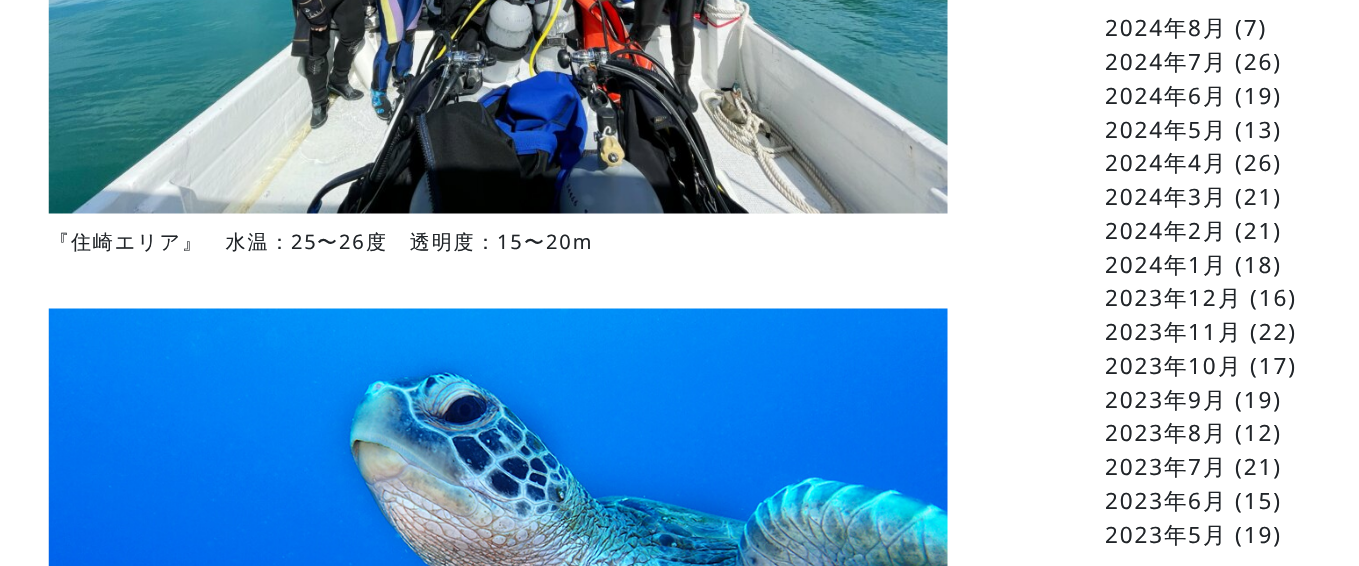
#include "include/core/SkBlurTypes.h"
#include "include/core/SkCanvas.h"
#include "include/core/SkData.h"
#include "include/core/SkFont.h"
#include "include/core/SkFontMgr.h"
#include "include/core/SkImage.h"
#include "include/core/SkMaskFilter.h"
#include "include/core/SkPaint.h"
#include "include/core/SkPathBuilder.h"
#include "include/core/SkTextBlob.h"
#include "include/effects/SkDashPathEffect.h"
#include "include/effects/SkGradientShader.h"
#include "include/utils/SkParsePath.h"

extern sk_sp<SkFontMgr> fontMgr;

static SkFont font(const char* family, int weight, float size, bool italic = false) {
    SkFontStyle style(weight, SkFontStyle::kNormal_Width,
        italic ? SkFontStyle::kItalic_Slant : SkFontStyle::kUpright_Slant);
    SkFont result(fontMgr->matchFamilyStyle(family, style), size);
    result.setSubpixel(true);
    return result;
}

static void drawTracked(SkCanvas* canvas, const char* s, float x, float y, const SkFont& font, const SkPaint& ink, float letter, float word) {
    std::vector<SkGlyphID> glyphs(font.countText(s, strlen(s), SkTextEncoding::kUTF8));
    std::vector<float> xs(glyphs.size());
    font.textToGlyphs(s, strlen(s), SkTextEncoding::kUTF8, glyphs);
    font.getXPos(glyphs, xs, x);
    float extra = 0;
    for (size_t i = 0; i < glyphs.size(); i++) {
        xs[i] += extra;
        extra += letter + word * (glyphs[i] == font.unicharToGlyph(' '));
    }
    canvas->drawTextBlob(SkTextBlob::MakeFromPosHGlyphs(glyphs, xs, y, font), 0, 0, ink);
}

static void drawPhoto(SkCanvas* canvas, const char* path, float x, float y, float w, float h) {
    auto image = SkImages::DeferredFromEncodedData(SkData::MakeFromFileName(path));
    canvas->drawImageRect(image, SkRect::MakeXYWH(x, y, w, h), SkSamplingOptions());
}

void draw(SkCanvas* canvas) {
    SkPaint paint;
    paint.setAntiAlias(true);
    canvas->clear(0xFFFFFFFF);
    drawPhoto(canvas, "assets/img1.png", 48, 0, 900, 214);
    SkFont font1 = font("WenQuanYi Zen Hei", 500, 20);
    paint.setColor(0xFF212529);
    drawTracked(canvas, "『住崎エリア』　水温：", 49, 249, font1, paint, 1.9f, 0);
    SkFont font2 = font("Noto Sans", 400, 20);
    drawTracked(canvas, "25", 291, 249, font2, paint, 1.9f, 0);
    drawTracked(canvas, "〜", 317, 249, font1, paint, 1.9f, 0);
    drawTracked(canvas, "26", 339, 249, font2, paint, 1.9f, 0);
    drawTracked(canvas, "度　透明度：", 366, 249, font1, paint, 1.9f, 0);
    drawTracked(canvas, "15", 497, 249, font2, paint, 1.9f, 0);
    drawTracked(canvas, "〜", 524, 249, font1, paint, 1.9f, 0);
    drawTracked(canvas, "20m", 546, 249, font2, paint, 1.9f, 0);
    drawPhoto(canvas, "assets/img2.png", 48, 308, 900, 258);
    SkFont font3 = font("Noto Sans", 400, 22.5f);
    drawTracked(canvas, "2024", 1105, 36, font3, paint, 1.9f, 0);
    SkFont font4 = font("WenQuanYi Zen Hei", 500, 22.5f);
    drawTracked(canvas, "年", 1164, 36, font4, paint, 1.9f, 0);
    drawTracked(canvas, "8", 1188, 36, font3, paint, 1.9f, 0);
    drawTracked(canvas, "月", 1203, 36, font4, paint, 1.9f, 0);
    drawTracked(canvas, "(7)", 1235, 36, font3, paint, 1.9f, 0);
    drawTracked(canvas, "2024", 1105, 70, font3, paint, 1.9f, 0);
    drawTracked(canvas, "年", 1164, 70, font4, paint, 1.9f, 0);
    drawTracked(canvas, "7", 1188, 70, font3, paint, 1.9f, 0);
    drawTracked(canvas, "月", 1203, 70, font4, paint, 1.9f, 0);
    drawTracked(canvas, "(26)", 1235, 70, font3, paint, 1.9f, 0);
    drawTracked(canvas, "2024", 1105, 104, font3, paint, 1.9f, 0);
    drawTracked(canvas, "年", 1164, 104, font4, paint, 1.9f, 0);
    drawTracked(canvas, "6", 1188, 104, font3, paint, 1.9f, 0);
    drawTracked(canvas, "月", 1203, 104, font4, paint, 1.9f, 0);
    drawTracked(canvas, "(19)", 1235, 104, font3, paint, 1.9f, 0);
    drawTracked(canvas, "2024", 1105, 138, font3, paint, 1.9f, 0);
    drawTracked(canvas, "年", 1164, 138, font4, paint, 1.9f, 0);
    drawTracked(canvas, "5", 1188, 138, font3, paint, 1.9f, 0);
    drawTracked(canvas, "月", 1203, 138, font4, paint, 1.9f, 0);
    drawTracked(canvas, "(13)", 1235, 138, font3, paint, 1.9f, 0);
    drawTracked(canvas, "2024", 1105, 171, font3, paint, 1.9f, 0);
    drawTracked(canvas, "年", 1164, 171, font4, paint, 1.9f, 0);
    drawTracked(canvas, "4", 1188, 171, font3, paint, 1.9f, 0);
    drawTracked(canvas, "月", 1203, 171, font4, paint, 1.9f, 0);
    drawTracked(canvas, "(26)", 1235, 171, font3, paint, 1.9f, 0);
    drawTracked(canvas, "2024", 1105, 205, font3, paint, 1.9f, 0);
    drawTracked(canvas, "年", 1164, 205, font4, paint, 1.9f, 0);
    drawTracked(canvas, "3", 1188, 205, font3, paint, 1.9f, 0);
    drawTracked(canvas, "月", 1203, 205, font4, paint, 1.9f, 0);
    drawTracked(canvas, "(21)", 1235, 205, font3, paint, 1.9f, 0);
    drawTracked(canvas, "2024", 1105, 239, font3, paint, 1.9f, 0);
    drawTracked(canvas, "年", 1164, 239, font4, paint, 1.9f, 0);
    drawTracked(canvas, "2", 1188, 239, font3, paint, 1.9f, 0);
    drawTracked(canvas, "月", 1203, 239, font4, paint, 1.9f, 0);
    drawTracked(canvas, "(21)", 1235, 239, font3, paint, 1.9f, 0);
    drawTracked(canvas, "2024", 1105, 273, font3, paint, 1.9f, 0);
    drawTracked(canvas, "年", 1164, 273, font4, paint, 1.9f, 0);
    drawTracked(canvas, "1", 1188, 273, font3, paint, 1.9f, 0);
    drawTracked(canvas, "月", 1203, 273, font4, paint, 1.9f, 0);
    drawTracked(canvas, "(18)", 1235, 273, font3, paint, 1.9f, 0);
    drawTracked(canvas, "2023", 1105, 306, font3, paint, 1.9f, 0);
    drawTracked(canvas, "年", 1164, 306, font4, paint, 1.9f, 0);
    drawTracked(canvas, "12", 1188, 306, font3, paint, 1.9f, 0);
    drawTracked(canvas, "月", 1218, 306, font4, paint, 1.9f, 0);
    drawTracked(canvas, "(16)", 1250, 306, font3, paint, 1.9f, 0);
    drawTracked(canvas, "2023", 1105, 340, font3, paint, 1.9f, 0);
    drawTracked(canvas, "年", 1164, 340, font4, paint, 1.9f, 0);
    drawTracked(canvas, "11", 1188, 340, font3, paint, 1.9f, 0);
    drawTracked(canvas, "月", 1218, 340, font4, paint, 1.9f, 0);
    drawTracked(canvas, "(22)", 1250, 340, font3, paint, 1.9f, 0);
    drawTracked(canvas, "2023", 1105, 374, font3, paint, 1.9f, 0);
    drawTracked(canvas, "年", 1164, 374, font4, paint, 1.9f, 0);
    drawTracked(canvas, "10", 1188, 374, font3, paint, 1.9f, 0);
    drawTracked(canvas, "月", 1218, 374, font4, paint, 1.9f, 0);
    drawTracked(canvas, "(17)", 1250, 374, font3, paint, 1.9f, 0);
    drawTracked(canvas, "2023", 1105, 408, font3, paint, 1.9f, 0);
    drawTracked(canvas, "年", 1164, 408, font4, paint, 1.9f, 0);
    drawTracked(canvas, "9", 1188, 408, font3, paint, 1.9f, 0);
    drawTracked(canvas, "月", 1203, 408, font4, paint, 1.9f, 0);
    drawTracked(canvas, "(19)", 1235, 408, font3, paint, 1.9f, 0);
    drawTracked(canvas, "2023", 1105, 441, font3, paint, 1.9f, 0);
    drawTracked(canvas, "年", 1164, 441, font4, paint, 1.9f, 0);
    drawTracked(canvas, "8", 1188, 441, font3, paint, 1.9f, 0);
    drawTracked(canvas, "月", 1203, 441, font4, paint, 1.9f, 0);
    drawTracked(canvas, "(12)", 1235, 441, font3, paint, 1.9f, 0);
    drawTracked(canvas, "2023", 1105, 475, font3, paint, 1.9f, 0);
    drawTracked(canvas, "年", 1164, 475, font4, paint, 1.9f, 0);
    drawTracked(canvas, "7", 1188, 475, font3, paint, 1.9f, 0);
    drawTracked(canvas, "月", 1203, 475, font4, paint, 1.9f, 0);
    drawTracked(canvas, "(21)", 1235, 475, font3, paint, 1.9f, 0);
    drawTracked(canvas, "2023", 1105, 509, font3, paint, 1.9f, 0);
    drawTracked(canvas, "年", 1164, 509, font4, paint, 1.9f, 0);
    drawTracked(canvas, "6", 1188, 509, font3, paint, 1.9f, 0);
    drawTracked(canvas, "月", 1203, 509, font4, paint, 1.9f, 0);
    drawTracked(canvas, "(15)", 1235, 509, font3, paint, 1.9f, 0);
    drawTracked(canvas, "2023", 1105, 543, font3, paint, 1.9f, 0);
    drawTracked(canvas, "年", 1164, 543, font4, paint, 1.9f, 0);
    drawTracked(canvas, "5", 1188, 543, font3, paint, 1.9f, 0);
    drawTracked(canvas, "月", 1203, 543, font4, paint, 1.9f, 0);
    drawTracked(canvas, "(19)", 1235, 543, font3, paint, 1.9f, 0);
}
